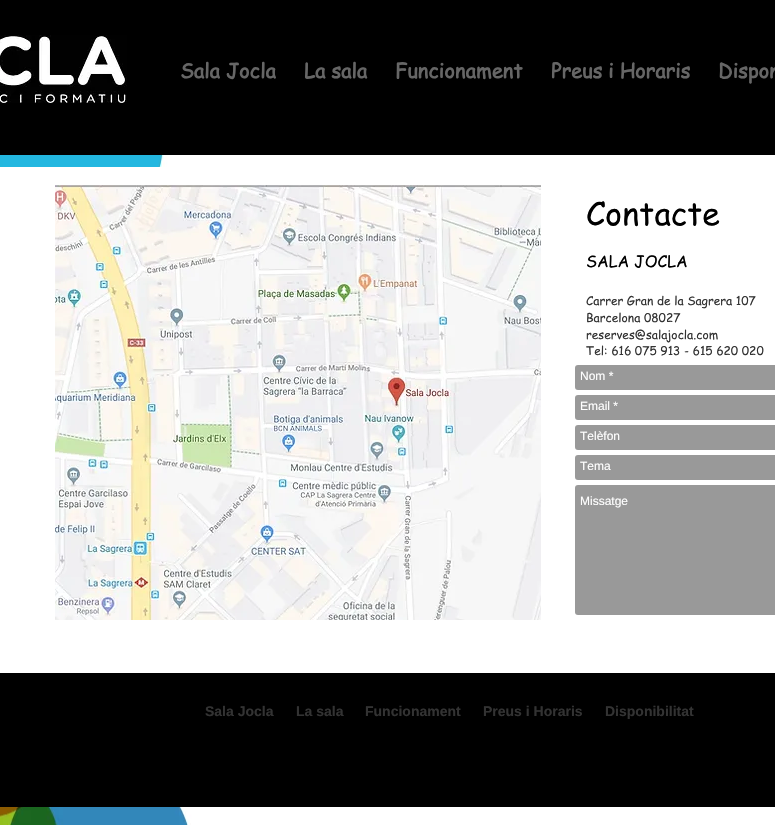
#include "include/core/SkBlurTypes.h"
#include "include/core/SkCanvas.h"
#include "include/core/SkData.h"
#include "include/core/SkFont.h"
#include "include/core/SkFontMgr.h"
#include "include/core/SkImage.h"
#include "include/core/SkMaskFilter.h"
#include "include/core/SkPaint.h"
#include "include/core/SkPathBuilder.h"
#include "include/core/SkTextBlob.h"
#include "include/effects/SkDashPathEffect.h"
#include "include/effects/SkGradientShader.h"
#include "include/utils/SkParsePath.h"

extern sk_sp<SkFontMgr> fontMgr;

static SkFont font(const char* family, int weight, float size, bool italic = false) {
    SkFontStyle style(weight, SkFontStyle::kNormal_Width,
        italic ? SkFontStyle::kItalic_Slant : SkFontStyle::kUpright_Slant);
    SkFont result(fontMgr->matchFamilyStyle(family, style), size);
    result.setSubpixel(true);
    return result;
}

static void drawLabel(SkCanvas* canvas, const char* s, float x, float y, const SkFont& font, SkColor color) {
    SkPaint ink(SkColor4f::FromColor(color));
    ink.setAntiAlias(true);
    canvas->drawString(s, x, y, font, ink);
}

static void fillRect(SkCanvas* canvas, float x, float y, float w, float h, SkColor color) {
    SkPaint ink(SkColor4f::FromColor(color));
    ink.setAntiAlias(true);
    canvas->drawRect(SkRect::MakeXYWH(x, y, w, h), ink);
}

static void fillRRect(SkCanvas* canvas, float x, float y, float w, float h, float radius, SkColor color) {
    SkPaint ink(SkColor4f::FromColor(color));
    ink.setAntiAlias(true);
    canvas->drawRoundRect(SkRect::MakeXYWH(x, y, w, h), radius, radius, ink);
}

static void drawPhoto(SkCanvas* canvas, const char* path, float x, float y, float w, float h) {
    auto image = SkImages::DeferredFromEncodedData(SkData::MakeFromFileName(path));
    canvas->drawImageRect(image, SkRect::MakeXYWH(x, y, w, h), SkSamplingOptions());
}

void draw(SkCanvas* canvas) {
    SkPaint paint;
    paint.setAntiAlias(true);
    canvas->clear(0xFFFFFFFF);
    fillRect(canvas, 0, 0, 775, 155, 0xFF000000);
    drawPhoto(canvas, "assets/img1.png", 0, 35, 127, 68);
    SkFont font1 = font("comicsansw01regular", 700, 20);
    drawLabel(canvas, "Sala Jocla", 180, 78, font1, 0xFF666666);
    drawLabel(canvas, "La sala", 304, 78, font1, 0xFF666666);
    drawLabel(canvas, "Funcionament", 395, 78, font1, 0xFF666666);
    drawLabel(canvas, "Preus i Horaris", 551, 78, font1, 0xFF666666);
    drawLabel(canvas, "Dispon", 718, 78, font1, 0xFF666666);
    drawPhoto(canvas, "assets/img3.png", 0, 155, 775, 670);
    fillRect(canvas, 0, 167, 192, 506, 0xFFFFFFFF);
    drawPhoto(canvas, "assets/img2.png", 55, 185, 486, 435);
    SkFont font2 = font("comicsansw01regular", 400, 32);
    drawLabel(canvas, "Contacte", 586, 225, font2, 0xFF000000);
    SkFont font3 = font("comicsansw01regular", 400, 16);
    drawLabel(canvas, "SALA JOCLA", 586, 267, font3, 0xFF000000);
    SkFont font4 = font("comicsansw01regular", 400, 12);
    drawLabel(canvas, "Carrer Gran de la Sagrera 107", 586, 305, font4, 0xFF333333);
    drawLabel(canvas, "Barcelona 08027", 586, 322, font4, 0xFF333333);
    drawLabel(canvas, "reserves@salajocla.com", 586, 339, font4, 0xFF333333);
    drawLabel(canvas, "Tel: 616 075 913 - 615 620 020", 586, 355, font4, 0xFF333333);
    fillRRect(canvas, 575, 365, 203, 25, 3, 0xFF999999);
    SkFont font5 = font("Liberation Sans", 400, 12);
    drawLabel(canvas, "Nom *", 580, 380, font5, 0xFFFFFFFF);
    fillRRect(canvas, 575, 395, 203, 25, 3, 0xFF999999);
    drawLabel(canvas, "Email *", 580, 410, font5, 0xFFFFFFFF);
    fillRRect(canvas, 575, 425, 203, 25, 3, 0xFF999999);
    drawLabel(canvas, "Telèfon", 580, 440, font5, 0xFFFFFFFF);
    fillRRect(canvas, 575, 455, 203, 25, 3, 0xFF999999);
    drawLabel(canvas, "Tema", 580, 470, font5, 0xFFFFFFFF);
    fillRRect(canvas, 575, 485, 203, 130, 3, 0xFF999999);
    drawLabel(canvas, "Missatge", 580, 505, font5, 0xFFFFFFFF);
    fillRect(canvas, 0, 673, 775, 134, 0xFF000000);
    SkFont font6 = font("Liberation Sans", 700, 14);
    drawLabel(canvas, "Sala Jocla", 205, 716, font6, 0xFF333333);
    drawLabel(canvas, "La sala", 296, 716, font6, 0xFF333333);
    drawLabel(canvas, "Funcionament", 365, 716, font6, 0xFF333333);
    drawLabel(canvas, "Preus i Horaris", 483, 716, font6, 0xFF333333);
    drawLabel(canvas, "Disponibilitat", 605, 716, font6, 0xFF333333);
}
